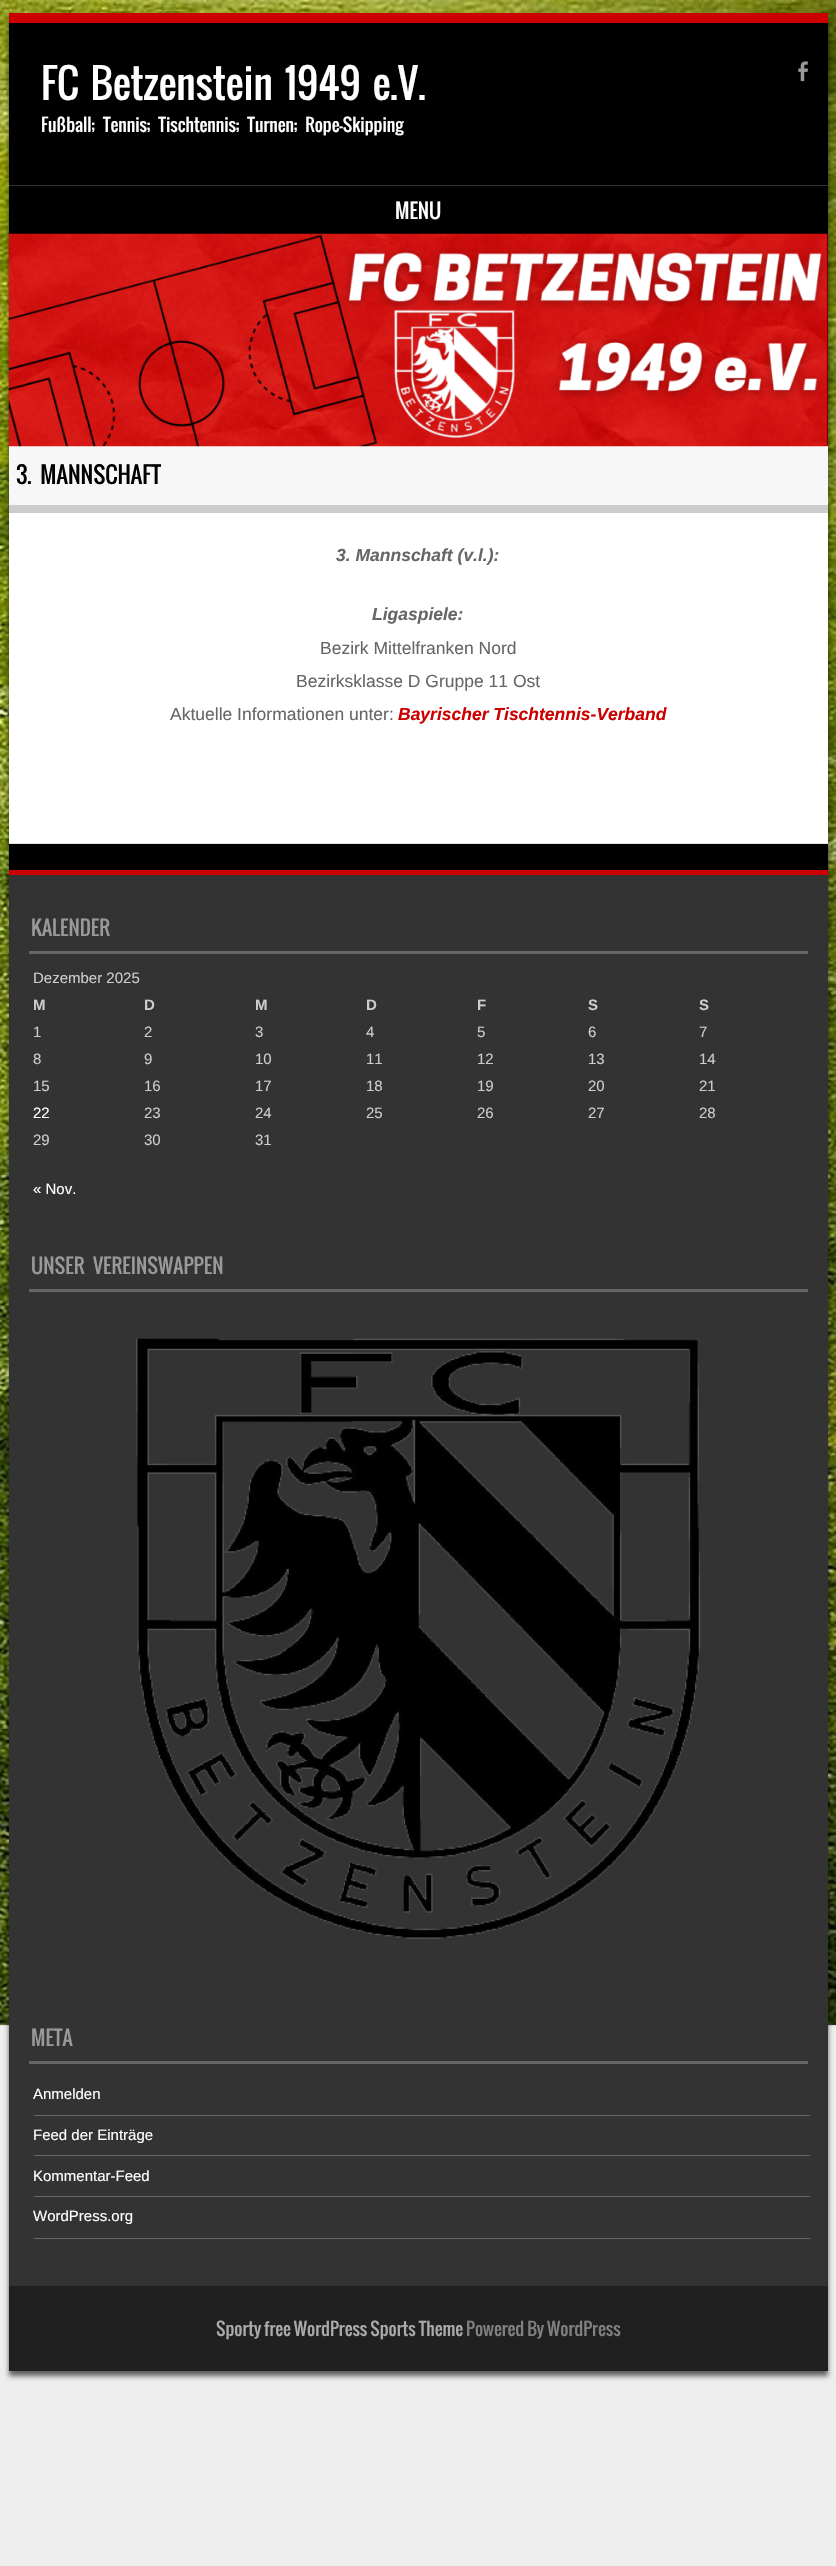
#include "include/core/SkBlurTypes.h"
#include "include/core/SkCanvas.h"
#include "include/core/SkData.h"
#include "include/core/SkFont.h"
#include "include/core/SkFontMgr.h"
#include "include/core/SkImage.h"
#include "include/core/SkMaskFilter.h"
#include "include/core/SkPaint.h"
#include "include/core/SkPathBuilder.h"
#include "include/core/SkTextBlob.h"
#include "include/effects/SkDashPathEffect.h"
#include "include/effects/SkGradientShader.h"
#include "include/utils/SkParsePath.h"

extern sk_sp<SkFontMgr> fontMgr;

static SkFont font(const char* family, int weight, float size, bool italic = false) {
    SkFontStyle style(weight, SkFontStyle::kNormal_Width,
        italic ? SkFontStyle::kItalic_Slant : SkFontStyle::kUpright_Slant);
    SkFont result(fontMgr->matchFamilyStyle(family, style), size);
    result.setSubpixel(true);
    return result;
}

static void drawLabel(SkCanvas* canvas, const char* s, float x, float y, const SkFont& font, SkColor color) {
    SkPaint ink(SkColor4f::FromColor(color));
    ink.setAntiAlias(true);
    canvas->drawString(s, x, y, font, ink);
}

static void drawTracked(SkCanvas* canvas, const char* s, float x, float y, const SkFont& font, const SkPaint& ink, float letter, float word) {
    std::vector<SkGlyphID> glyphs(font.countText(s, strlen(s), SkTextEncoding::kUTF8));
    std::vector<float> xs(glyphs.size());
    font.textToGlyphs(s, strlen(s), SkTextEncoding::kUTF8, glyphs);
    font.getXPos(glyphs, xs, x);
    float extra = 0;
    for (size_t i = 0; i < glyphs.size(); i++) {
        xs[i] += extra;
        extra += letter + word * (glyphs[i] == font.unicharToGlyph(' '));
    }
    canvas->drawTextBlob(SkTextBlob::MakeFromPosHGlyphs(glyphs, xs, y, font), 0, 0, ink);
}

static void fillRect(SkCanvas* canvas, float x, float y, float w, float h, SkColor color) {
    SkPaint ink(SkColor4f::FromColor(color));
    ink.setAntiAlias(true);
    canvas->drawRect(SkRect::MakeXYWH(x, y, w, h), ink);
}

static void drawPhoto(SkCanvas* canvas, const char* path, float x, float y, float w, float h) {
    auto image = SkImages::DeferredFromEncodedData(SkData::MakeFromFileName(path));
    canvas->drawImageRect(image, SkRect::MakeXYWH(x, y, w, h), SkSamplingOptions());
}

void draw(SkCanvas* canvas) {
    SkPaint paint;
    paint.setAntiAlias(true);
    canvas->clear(0xFFEEEEEE);
    drawPhoto(canvas, "assets/img1.png", 0, 0, 836, 2026);
    paint.setColor(0x99000000);
    paint.setMaskFilter(SkMaskFilter::MakeBlur(kNormal_SkBlurStyle, 2.5f));
    canvas->drawRect(SkRect::MakeXYWH(9, 18, 819, 2358), paint);
    paint.setMaskFilter(nullptr);
    fillRect(canvas, 9, 23, 819, 847, 0xFF000000);
    fillRect(canvas, 9, 13, 819, 10, 0xFFCC0000);
    SkFont font1 = font("Oswald", 400, 40);
    paint.setColor(0xFFFFFFFF);
    drawTracked(canvas, "FC Betzenstein 1949 e.V.", 41, 100, font1, paint, 0, 5);
    SkFont font2 = font("Oswald", 400, 17.5f);
    drawTracked(canvas, "Fußball; Tennis; Tischtennis; Turnen; Rope-Skipping", 41, 132, font2, paint, 0, 5);
    drawPhoto(canvas, "assets/img2.png", 798, 61, 10, 21);
    fillRect(canvas, 9, 185, 819, 1, 0xFF333333);
    SkFont font3 = font("Oswald", 400, 20);
    drawLabel(canvas, "MENU", 395, 219, font3, 0xFFFFFFFF);
    fillRect(canvas, 9, 446, 819, 59, 0xFFF7F7F7);
    drawPhoto(canvas, "assets/img3.png", 8, 233, 820, 214);
    fillRect(canvas, 9, 513, 819, 330, 0xFFFFFFFF);
    fillRect(canvas, 9, 843, 819, 1, 0xFFE6E6E6);
    fillRect(canvas, 9, 505, 819, 8, 0xFFCCCCCC);
    SkFont font4 = font("Oswald", 400, 22.5f);
    paint.setColor(0xFF000000);
    drawTracked(canvas, "3. MANNSCHAFT", 16, 484, font4, paint, 0, 5);
    SkFont font5 = font("Liberation Sans", 700, 17.5f, true);
    drawLabel(canvas, "3. Mannschaft (v.l.):", 336, 561, font5, 0xFF666666);
    drawLabel(canvas, "Ligaspiele:", 372, 620, font5, 0xFF666666);
    SkFont font6 = font("Liberation Sans", 400, 17.5f);
    drawLabel(canvas, "Bezirk Mittelfranken Nord", 320, 654, font6, 0xFF666666);
    drawLabel(canvas, "Bezirksklasse D Gruppe 11 Ost", 296, 687, font6, 0xFF666666);
    drawLabel(canvas, "Aktuelle Informationen unter:", 170, 720, font6, 0xFF666666);
    drawLabel(canvas, "Bayrischer Tischtennis-Verband", 398, 720, font5, 0xFFCC0000);
    fillRect(canvas, 9, 875, 819, 1411, 0xFF333333);
    fillRect(canvas, 9, 870, 819, 5, 0xFFCC0000);
    fillRect(canvas, 29, 951, 779, 3, 0xFF666666);
    drawLabel(canvas, "KALENDER", 31, 936, font3, 0xFF999999);
    SkFont font7 = font("Liberation Sans", 400, 15);
    drawLabel(canvas, "Dezember 2025", 33, 983, font7, 0xFFCCCCCC);
    SkFont font8 = font("Liberation Sans", 700, 15);
    drawLabel(canvas, "M", 33, 1010, font8, 0xFFCCCCCC);
    drawLabel(canvas, "D", 144, 1010, font8, 0xFFCCCCCC);
    drawLabel(canvas, "M", 255, 1010, font8, 0xFFCCCCCC);
    drawLabel(canvas, "D", 366, 1010, font8, 0xFFCCCCCC);
    drawLabel(canvas, "F", 477, 1010, font8, 0xFFCCCCCC);
    drawLabel(canvas, "S", 588, 1010, font8, 0xFFCCCCCC);
    drawLabel(canvas, "S", 699, 1010, font8, 0xFFCCCCCC);
    drawLabel(canvas, "1", 33, 1037, font7, 0xFFCCCCCC);
    drawLabel(canvas, "2", 144, 1037, font7, 0xFFCCCCCC);
    drawLabel(canvas, "3", 255, 1037, font7, 0xFFCCCCCC);
    drawLabel(canvas, "4", 366, 1037, font7, 0xFFCCCCCC);
    drawLabel(canvas, "5", 477, 1037, font7, 0xFFCCCCCC);
    drawLabel(canvas, "6", 588, 1037, font7, 0xFFCCCCCC);
    drawLabel(canvas, "7", 699, 1037, font7, 0xFFCCCCCC);
    drawLabel(canvas, "8", 33, 1064, font7, 0xFFCCCCCC);
    drawLabel(canvas, "9", 144, 1064, font7, 0xFFCCCCCC);
    drawLabel(canvas, "10", 255, 1064, font7, 0xFFCCCCCC);
    drawLabel(canvas, "11", 366, 1064, font7, 0xFFCCCCCC);
    drawLabel(canvas, "12", 477, 1064, font7, 0xFFCCCCCC);
    drawLabel(canvas, "13", 588, 1064, font7, 0xFFCCCCCC);
    drawLabel(canvas, "14", 699, 1064, font7, 0xFFCCCCCC);
    drawLabel(canvas, "15", 33, 1091, font7, 0xFFCCCCCC);
    drawLabel(canvas, "16", 144, 1091, font7, 0xFFCCCCCC);
    drawLabel(canvas, "17", 255, 1091, font7, 0xFFCCCCCC);
    drawLabel(canvas, "18", 366, 1091, font7, 0xFFCCCCCC);
    drawLabel(canvas, "19", 477, 1091, font7, 0xFFCCCCCC);
    drawLabel(canvas, "20", 588, 1091, font7, 0xFFCCCCCC);
    drawLabel(canvas, "21", 699, 1091, font7, 0xFFCCCCCC);
    drawLabel(canvas, "22", 33, 1118, font7, 0xFFFFFFFF);
    drawLabel(canvas, "23", 144, 1118, font7, 0xFFCCCCCC);
    drawLabel(canvas, "24", 255, 1118, font7, 0xFFCCCCCC);
    drawLabel(canvas, "25", 366, 1118, font7, 0xFFCCCCCC);
    drawLabel(canvas, "26", 477, 1118, font7, 0xFFCCCCCC);
    drawLabel(canvas, "27", 588, 1118, font7, 0xFFCCCCCC);
    drawLabel(canvas, "28", 699, 1118, font7, 0xFFCCCCCC);
    drawLabel(canvas, "29", 33, 1145, font7, 0xFFCCCCCC);
    drawLabel(canvas, "30", 144, 1145, font7, 0xFFCCCCCC);
    drawLabel(canvas, "31", 255, 1145, font7, 0xFFCCCCCC);
    drawLabel(canvas, "« Nov.", 33, 1194, font7, 0xFFFFFFFF);
    fillRect(canvas, 29, 1289, 779, 3, 0xFF666666);
    paint.setColor(0xFF999999);
    drawTracked(canvas, "UNSER VEREINSWAPPEN", 31, 1274, font3, paint, 0, 5);
    drawPhoto(canvas, "assets/img4.png", 136, 1338, 565, 601);
    fillRect(canvas, 29, 2061, 779, 3, 0xFF666666);
    drawLabel(canvas, "META", 31, 2046, font3, 0xFF999999);
    fillRect(canvas, 34, 2115, 776, 1, 0xFF666666);
    drawLabel(canvas, "Anmelden", 33, 2099, font7, 0xFFFFFFFF);
    fillRect(canvas, 34, 2155, 776, 1, 0xFF666666);
    drawLabel(canvas, "Feed der Einträge", 33, 2140, font7, 0xFFFFFFFF);
    fillRect(canvas, 34, 2196, 776, 1, 0xFF666666);
    drawLabel(canvas, "Kommentar-Feed", 33, 2181, font7, 0xFFFFFFFF);
    fillRect(canvas, 34, 2238, 776, 1, 0xFF666666);
    drawLabel(canvas, "WordPress.org", 33, 2221, font7, 0xFFFFFFFF);
    fillRect(canvas, 9, 2286, 819, 85, 0xFF202020);
    drawLabel(canvas, "Sporty free WordPress Sports Theme", 216, 2336, font2, 0xFFAAAAAA);
    drawLabel(canvas, "Powered By WordPress", 466, 2336, font2, 0xFF808080);
}
